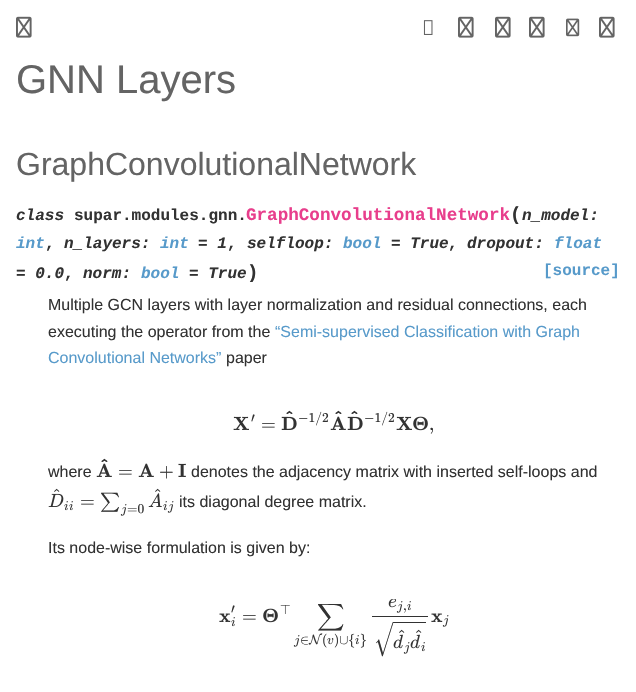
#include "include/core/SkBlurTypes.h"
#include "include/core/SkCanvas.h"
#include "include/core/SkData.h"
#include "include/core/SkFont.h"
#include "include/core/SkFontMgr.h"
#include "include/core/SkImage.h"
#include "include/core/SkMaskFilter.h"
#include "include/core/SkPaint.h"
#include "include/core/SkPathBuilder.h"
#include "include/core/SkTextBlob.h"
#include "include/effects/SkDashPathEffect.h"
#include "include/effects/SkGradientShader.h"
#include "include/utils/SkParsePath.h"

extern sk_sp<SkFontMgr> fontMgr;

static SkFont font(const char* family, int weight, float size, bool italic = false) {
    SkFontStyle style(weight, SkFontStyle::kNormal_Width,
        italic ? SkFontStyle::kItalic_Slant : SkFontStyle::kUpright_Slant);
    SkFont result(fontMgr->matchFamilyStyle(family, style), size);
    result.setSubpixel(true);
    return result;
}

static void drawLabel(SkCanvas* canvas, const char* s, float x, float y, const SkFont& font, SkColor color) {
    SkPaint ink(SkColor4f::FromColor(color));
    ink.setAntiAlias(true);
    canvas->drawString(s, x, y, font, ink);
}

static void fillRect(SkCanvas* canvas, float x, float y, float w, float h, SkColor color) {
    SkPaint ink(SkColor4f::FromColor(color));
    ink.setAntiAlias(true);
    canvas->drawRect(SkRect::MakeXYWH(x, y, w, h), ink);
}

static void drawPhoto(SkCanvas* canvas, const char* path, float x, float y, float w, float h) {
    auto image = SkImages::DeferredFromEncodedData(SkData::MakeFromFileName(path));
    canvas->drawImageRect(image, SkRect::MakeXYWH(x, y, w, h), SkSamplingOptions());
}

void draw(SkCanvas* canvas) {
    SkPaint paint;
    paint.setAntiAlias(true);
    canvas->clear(0xFFFFFFFF);
    drawPhoto(canvas, "assets/img1.png", 16, 16, 16, 22);
    drawPhoto(canvas, "assets/img2.png", 423, 20, 10, 15);
    drawPhoto(canvas, "assets/img1.png", 458, 16, 16, 22);
    drawPhoto(canvas, "assets/img1.png", 495, 16, 16, 22);
    drawPhoto(canvas, "assets/img1.png", 529, 16, 16, 22);
    drawPhoto(canvas, "assets/img3.png", 566, 18, 14, 19);
    drawPhoto(canvas, "assets/img1.png", 599, 16, 16, 22);
    SkFont font1 = font("Liberation Sans", 400, 40);
    drawLabel(canvas, "GNN Layers", 16, 93, font1, 0xFF646464);
    SkFont font2 = font("Liberation Sans", 400, 32);
    drawLabel(canvas, "GraphConvolutionalNetwork", 16, 175, font2, 0xFF646464);
    SkFont font3 = font("Liberation Mono", 700, 16, true);
    drawLabel(canvas, "class", 16, 220, font3, 0xFF323232);
    SkFont font4 = font("Liberation Mono", 700, 16);
    drawLabel(canvas, "supar.modules.gnn.", 74, 220, font4, 0xFF323232);
    SkFont font5 = font("Liberation Mono", 700, 17.6f);
    drawLabel(canvas, "GraphConvolutionalNetwork", 246, 220, font5, 0xFFE83E8C);
    SkFont font6 = font("Liberation Mono", 700, 19);
    drawLabel(canvas, "(", 510, 220, font6, 0xFF323232);
    drawLabel(canvas, "n_model:", 522, 220, font3, 0xFF323232);
    drawLabel(canvas, "int", 16, 248, font3, 0xFF579ACA);
    drawLabel(canvas, ",", 45, 248, font4, 0xFF323232);
    drawLabel(canvas, "n_layers:", 64, 248, font3, 0xFF323232);
    drawLabel(canvas, "int", 160, 248, font3, 0xFF579ACA);
    drawLabel(canvas, "= 1", 198, 248, font3, 0xFF323232);
    drawLabel(canvas, ",", 227, 248, font4, 0xFF323232);
    drawLabel(canvas, "selfloop:", 247, 248, font3, 0xFF323232);
    drawLabel(canvas, "bool", 343, 248, font3, 0xFF579ACA);
    drawLabel(canvas, "= True", 391, 248, font3, 0xFF323232);
    drawLabel(canvas, ",", 448, 248, font4, 0xFF323232);
    drawLabel(canvas, "dropout:", 467, 248, font3, 0xFF323232);
    drawLabel(canvas, "float", 554, 248, font3, 0xFF579ACA);
    drawLabel(canvas, "= 0.0", 16, 278, font3, 0xFF323232);
    drawLabel(canvas, ",", 64, 278, font4, 0xFF323232);
    drawLabel(canvas, "norm:", 83, 278, font3, 0xFF323232);
    drawLabel(canvas, "bool", 141, 278, font3, 0xFF579ACA);
    drawLabel(canvas, "= True", 189, 278, font3, 0xFF323232);
    drawLabel(canvas, ")", 247, 278, font6, 0xFF323232);
    drawLabel(canvas, "[source]", 543, 275, font4, 0xFF579ACA);
    SkFont font7 = font("Liberation Sans", 400, 16);
    drawLabel(canvas, "Multiple GCN layers with layer normalization and residual connections, each", 48, 310, font7, 0xFF323232);
    drawLabel(canvas, "executing the operator from the", 48, 337, font7, 0xFF323232);
    drawLabel(canvas, "“Semi-supervised Classification with Graph", 275, 337, font7, 0xFF579ACA);
    drawLabel(canvas, "Convolutional Networks”", 48, 363, font7, 0xFF579ACA);
    drawLabel(canvas, "paper", 226, 363, font7, 0xFF323232);
    drawPhoto(canvas, "assets/img4.png", 233, 416, 16, 14);
    SkFont font8 = font("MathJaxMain", 400, 13.5f);
    drawLabel(canvas, "′", 251, 422, font8, 0xFF323232);
    SkFont font9 = font("MathJaxMain", 400, 19);
    drawLabel(canvas, "=", 261, 430, font9, 0xFF323232);
    SkFont font10 = font("MathJaxMain", 700, 19);
    drawLabel(canvas, "^", 284, 424, font10, 0xFF323232);
    drawPhoto(canvas, "assets/img5.png", 281, 416, 16, 14);
    drawLabel(canvas, "−1/2", 298, 422, font8, 0xFF323232);
    drawLabel(canvas, "^", 333, 424, font10, 0xFF323232);
    drawPhoto(canvas, "assets/img6.png", 330, 416, 16, 14);
    drawLabel(canvas, "^", 349, 424, font10, 0xFF323232);
    drawPhoto(canvas, "assets/img5.png", 347, 416, 16, 14);
    drawLabel(canvas, "−1/2", 364, 422, font8, 0xFF323232);
    drawPhoto(canvas, "assets/img4.png", 396, 416, 16, 14);
    drawPhoto(canvas, "assets/img7.png", 413, 416, 15, 15);
    drawLabel(canvas, ",", 429, 430, font9, 0xFF323232);
    drawLabel(canvas, "where", 48, 477, font7, 0xFF323232);
    drawLabel(canvas, "^", 99, 472, font10, 0xFF323232);
    drawPhoto(canvas, "assets/img6.png", 96, 463, 16, 14);
    drawLabel(canvas, "=", 118, 477, font9, 0xFF323232);
    drawPhoto(canvas, "assets/img6.png", 138, 463, 16, 14);
    drawLabel(canvas, "+", 159, 477, font9, 0xFF323232);
    drawPhoto(canvas, "assets/img8.png", 178, 463, 8, 14);
    drawLabel(canvas, "denotes the adjacency matrix with inserted self-loops and", 191, 477, font7, 0xFF323232);
    drawLabel(canvas, "^", 52, 502, font9, 0xFF323232);
    drawPhoto(canvas, "assets/img9.png", 48, 493, 16, 14);
    drawPhoto(canvas, "assets/img10.png", 64, 501, 4, 10);
    drawPhoto(canvas, "assets/img10.png", 69, 501, 4, 10);
    drawLabel(canvas, "^", 153, 502, font9, 0xFF323232);
    drawPhoto(canvas, "assets/img11.png", 148, 493, 14, 14);
    drawPhoto(canvas, "assets/img10.png", 163, 501, 4, 10);
    drawPhoto(canvas, "assets/img12.png", 167, 501, 7, 12);
    drawLabel(canvas, "=", 80, 507, font9, 0xFF323232);
    SkFont font11 = font("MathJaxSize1", 400, 19);
    drawLabel(canvas, "∑", 100, 507, font11, 0xFF323232);
    drawPhoto(canvas, "assets/img12.png", 120, 504, 7, 12);
    drawLabel(canvas, "=0", 127, 513, font8, 0xFF323232);
    drawLabel(canvas, "its diagonal degree matrix.", 179, 507, font7, 0xFF323232);
    drawLabel(canvas, "Its node-wise formulation is given by:", 48, 553, font7, 0xFF323232);
    drawLabel(canvas, "′", 231, 613, font8, 0xFF323232);
    drawPhoto(canvas, "assets/img10.png", 231, 617, 4, 10);
    drawPhoto(canvas, "assets/img13.png", 219, 613, 12, 9);
    drawLabel(canvas, "=", 242, 622, font9, 0xFF323232);
    drawPhoto(canvas, "assets/img7.png", 263, 608, 15, 15);
    drawLabel(canvas, "⊤", 280, 614, font8, 0xFF323232);
    SkFont font12 = font("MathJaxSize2", 400, 19);
    drawLabel(canvas, "∑", 317, 622, font12, 0xFF323232);
    drawPhoto(canvas, "assets/img12.png", 293, 635, 7, 12);
    drawLabel(canvas, "∈", 300, 644, font8, 0xFF323232);
    drawPhoto(canvas, "assets/img14.png", 308, 633, 15, 12);
    drawLabel(canvas, "(", 322, 644, font8, 0xFF323232);
    drawPhoto(canvas, "assets/img15.png", 327, 638, 7, 7);
    drawLabel(canvas, ")∪{", 334, 644, font8, 0xFF323232);
    drawPhoto(canvas, "assets/img10.png", 355, 635, 4, 10);
    drawLabel(canvas, "}", 360, 644, font8, 0xFF323232);
    drawPhoto(canvas, "assets/img16.png", 388, 599, 9, 9);
    drawPhoto(canvas, "assets/img17.png", 396, 601, 7, 12);
    drawLabel(canvas, ",", 403, 610, font8, 0xFF323232);
    drawPhoto(canvas, "assets/img10.png", 407, 601, 4, 10);
    fillRect(canvas, 372, 616, 56, 1, 0xFF323232);
    drawLabel(canvas, "√", 374, 644, font12, 0xFF323232);
    fillRect(canvas, 393, 622, 33, 1, 0xFF323232);
    drawLabel(canvas, "^", 397, 643, font9, 0xFF323232);
    drawPhoto(canvas, "assets/img18.png", 393, 634, 10, 15);
    drawPhoto(canvas, "assets/img12.png", 403, 642, 7, 12);
    drawLabel(canvas, "^", 414, 643, font9, 0xFF323232);
    drawPhoto(canvas, "assets/img18.png", 410, 634, 10, 15);
    drawPhoto(canvas, "assets/img10.png", 421, 642, 4, 10);
    drawPhoto(canvas, "assets/img13.png", 431, 613, 12, 9);
    drawPhoto(canvas, "assets/img19.png", 442, 615, 7, 12);
}
